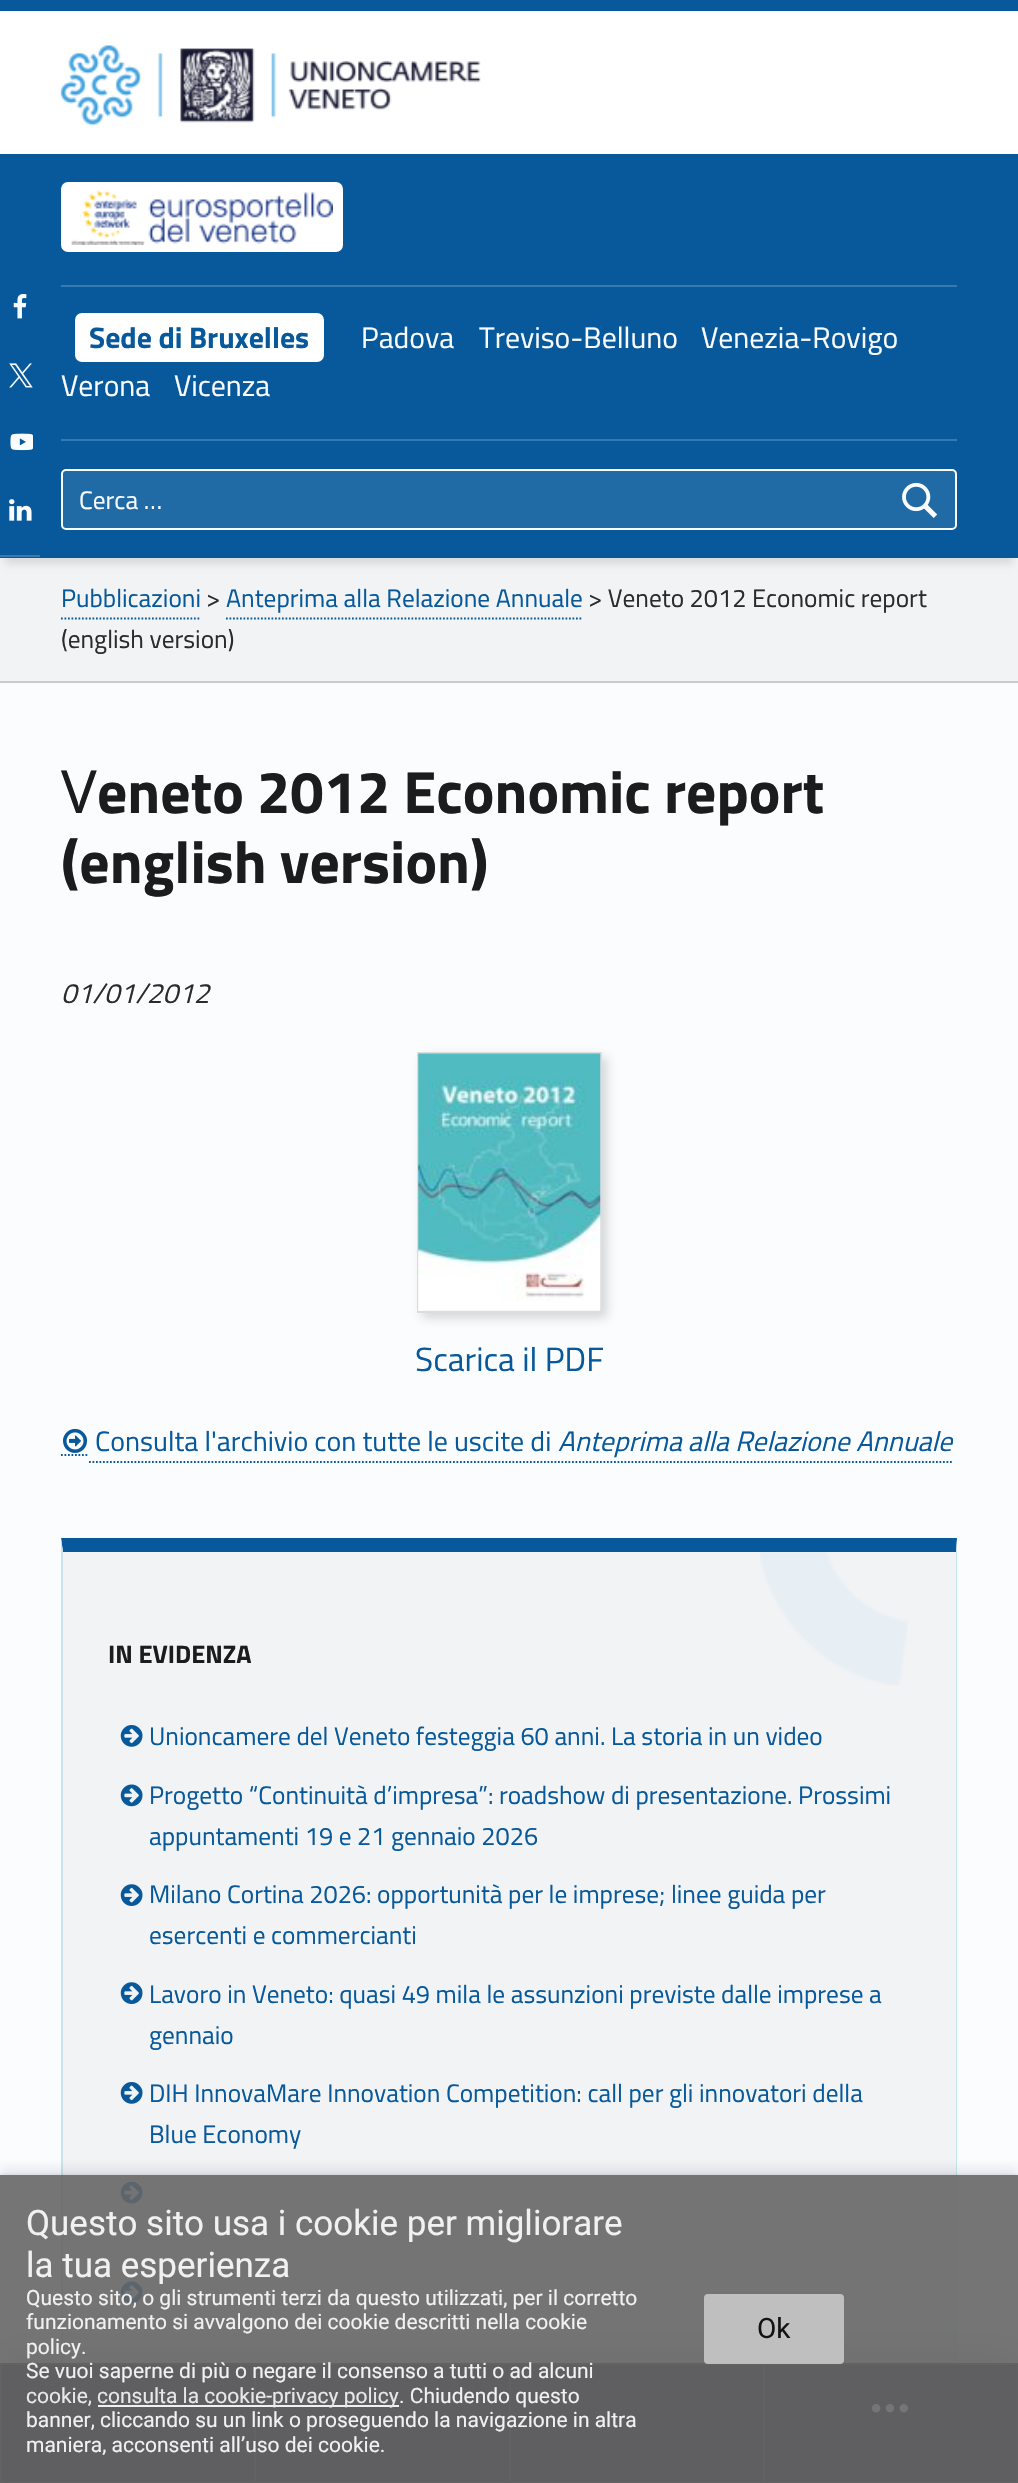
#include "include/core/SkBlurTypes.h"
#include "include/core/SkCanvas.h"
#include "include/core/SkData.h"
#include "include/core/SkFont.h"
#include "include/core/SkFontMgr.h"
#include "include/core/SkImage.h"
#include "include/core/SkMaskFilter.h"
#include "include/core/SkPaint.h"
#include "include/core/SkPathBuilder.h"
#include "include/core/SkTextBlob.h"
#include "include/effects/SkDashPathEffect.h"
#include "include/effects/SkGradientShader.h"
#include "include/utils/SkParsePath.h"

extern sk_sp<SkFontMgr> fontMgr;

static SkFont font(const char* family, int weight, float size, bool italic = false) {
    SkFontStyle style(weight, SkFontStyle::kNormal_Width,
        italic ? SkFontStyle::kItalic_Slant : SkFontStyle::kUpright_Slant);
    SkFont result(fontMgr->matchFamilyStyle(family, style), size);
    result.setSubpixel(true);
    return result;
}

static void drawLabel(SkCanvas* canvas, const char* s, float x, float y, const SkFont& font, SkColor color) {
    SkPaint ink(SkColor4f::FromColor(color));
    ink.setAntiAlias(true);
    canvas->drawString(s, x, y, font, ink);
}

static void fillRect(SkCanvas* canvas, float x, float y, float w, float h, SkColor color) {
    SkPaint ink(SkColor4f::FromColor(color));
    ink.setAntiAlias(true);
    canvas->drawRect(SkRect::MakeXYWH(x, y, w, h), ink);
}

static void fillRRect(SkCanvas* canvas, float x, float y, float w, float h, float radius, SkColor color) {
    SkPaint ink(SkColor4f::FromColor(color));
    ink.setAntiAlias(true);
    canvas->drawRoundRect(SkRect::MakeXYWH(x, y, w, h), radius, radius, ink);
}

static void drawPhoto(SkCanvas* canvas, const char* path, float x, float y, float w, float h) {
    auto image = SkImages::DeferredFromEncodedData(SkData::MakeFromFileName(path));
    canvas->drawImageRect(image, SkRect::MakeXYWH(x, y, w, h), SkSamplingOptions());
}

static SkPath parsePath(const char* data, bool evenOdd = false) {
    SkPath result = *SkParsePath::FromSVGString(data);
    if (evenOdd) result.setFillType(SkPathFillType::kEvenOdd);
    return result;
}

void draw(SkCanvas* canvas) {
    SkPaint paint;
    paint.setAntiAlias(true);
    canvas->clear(0xFFFAFCFE);
    fillRect(canvas, 0, 558, 1018, 123, 0xFFF1F3F5);
    paint.setColor(0x1A000000);
    paint.setMaskFilter(SkMaskFilter::MakeBlur(kNormal_SkBlurStyle, 3.5f));
    canvas->drawRect(SkRect::MakeXYWH(5, 16, 1008, 548), paint);
    paint.setMaskFilter(nullptr);
    fillRect(canvas, 0, 11, 1018, 143, 0xFFFFFFFF);
    fillRect(canvas, 0, 0, 1018, 11, 0xFF07599B);
    drawPhoto(canvas, "assets/img1.png", 60, 45, 421, 81);
    fillRect(canvas, 63, 1552, 893, 811, 0xFFF1F3F5);
    paint.setColor(0xFF07599B);
    canvas->drawPath(parsePath("M63 1552L61 1538H957L956 1552Z"), paint);
    paint.setColor(0xFFC8E5EB);
    canvas->drawPath(parsePath("M957 1540V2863C957 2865 956 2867 955 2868L954 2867C955 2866 956 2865 956 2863V1552Z"), paint);
    canvas->drawPath(parsePath("M63 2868L61 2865V1538L63 1552V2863C63 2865 64 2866 65 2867Z"), paint);
    drawPhoto(canvas, "assets/img13.png", 120, 2281, 23, 23);
    paint.setColor(0x54000000);
    paint.setMaskFilter(SkMaskFilter::MakeBlur(kNormal_SkBlurStyle, 22.5f));
    canvas->drawRect(SkRect::MakeXYWH(0, 2363, 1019, 120), paint);
    paint.setMaskFilter(nullptr);
    fillRect(canvas, 2, 2365, 1015, 117, 0xFF1A1C2E);
    fillRect(canvas, 763, 2363, 255, 2, 0xFF3A3C4E);
    fillRect(canvas, 1017, 2363, 1, 120, 0xFF3A3C4E);
    fillRect(canvas, 763, 2482, 255, 1, 0xFF3A3C4E);
    fillRect(canvas, 763, 2363, 2, 120, 0xFF3A3C4E);
    fillRect(canvas, 509, 2363, 256, 2, 0xFF3A3C4E);
    fillRect(canvas, 509, 2482, 256, 1, 0xFF3A3C4E);
    fillRect(canvas, 509, 2363, 2, 120, 0xFF3A3C4E);
    fillRect(canvas, 254, 2363, 257, 2, 0xFF3A3C4E);
    fillRect(canvas, 254, 2482, 257, 1, 0xFF3A3C4E);
    fillRect(canvas, 254, 2363, 2, 120, 0xFF3A3C4E);
    fillRect(canvas, 0, 2363, 256, 2, 0xFF3A3C4E);
    fillRect(canvas, 0, 2482, 256, 1, 0xFF3A3C4E);
    fillRect(canvas, 0, 2363, 2, 120, 0xFF3A3C4E);
    drawPhoto(canvas, "assets/img2.png", 871, 2404, 37, 9);
    fillRect(canvas, 0, 154, 1018, 404, 0xFF07599B);
    fillRect(canvas, 61, 285, 896, 2, 0xFF387AAF);
    fillRRect(canvas, 61, 182, 282, 70, 7, 0xFFFFFFFF);
    drawPhoto(canvas, "assets/img3.png", 71, 190, 262, 55);
    fillRect(canvas, 0, 555, 40, 2, 0xFF387AAF);
    drawPhoto(canvas, "assets/img4.png", 13, 294, 14, 25);
    drawPhoto(canvas, "assets/img5.png", 9, 363, 24, 25);
    drawPhoto(canvas, "assets/img6.png", 10, 433, 23, 18);
    drawPhoto(canvas, "assets/img7.png", 9, 499, 23, 22);
    fillRect(canvas, 61, 439, 896, 2, 0xFF387AAF);
    fillRRect(canvas, 75, 313, 249, 49, 7, 0xFFFFFFFF);
    SkFont font1 = font("Titillium Web", 700, 29.75f);
    drawLabel(canvas, "Sede di Bruxelles", 89, 348, font1, 0xFF07599B);
    SkFont font2 = font("Titillium Web", 400, 29.75f);
    drawLabel(canvas, "Padova", 361, 348, font2, 0xFFFAFCFE);
    drawLabel(canvas, "Treviso-Belluno", 479, 348, font2, 0xFFFAFCFE);
    drawLabel(canvas, "Venezia-Rovigo", 701, 348, font2, 0xFFFAFCFE);
    drawLabel(canvas, "Verona", 61, 396, font2, 0xFFFAFCFE);
    drawLabel(canvas, "Vicenza", 174, 396, font2, 0xFFFAFCFE);
    paint.setColor(0xFF206AA5);
    canvas->drawRoundRect(SkRect::MakeXYWH(62, 470, 894, 59), 4, 4, paint);
    paint.setStroke(true);
    paint.setStrokeWidth(2);
    paint.setColor(0xFFFAFCFE);
    canvas->drawRoundRect(SkRect::MakeXYWH(62, 470, 894, 59), 4, 4, paint);
    SkFont font3 = font("Titillium Web", 400, 25.35f);
    drawLabel(canvas, "Cerca …", 79, 509, font3, 0xFFFAFCFE);
    drawPhoto(canvas, "assets/img8.png", 902, 482, 36, 36);
    fillRect(canvas, 0, 681, 1018, 2, 0xFFCACCCE);
    drawLabel(canvas, "Pubblicazioni", 61, 607, font3, 0xFF07599B);
    paint.setStrokeWidth(1.8f);
    paint.setColor(0xFF07599B);
    paint.setPathEffect(SkDashPathEffect::Make({{1.75f, 1.75f}}, 0));
    canvas->drawPath(parsePath("M61 618.5H201"), paint);
    paint.setPathEffect(nullptr);
    drawLabel(canvas, ">", 206, 607, font3, 0xFF292B2D);
    drawLabel(canvas, "Anteprima alla Relazione Annuale", 226, 607, font3, 0xFF07599B);
    paint.setPathEffect(SkDashPathEffect::Make({{1.75f, 1.75f}}, 0));
    canvas->drawPath(parsePath("M226 618.5H583"), paint);
    paint.setPathEffect(nullptr);
    drawLabel(canvas, "> Veneto 2012 Economic report", 588, 607, font3, 0xFF292B2D);
    drawLabel(canvas, "(english version)", 61, 648, font3, 0xFF292B2D);
    SkFont font4 = font("Noto Sans", 400, 59.5f);
    drawLabel(canvas, "V", 61, 813, font4, 0xFF1A1C1E);
    SkFont font5 = font("Titillium Web", 700, 59.5f);
    drawLabel(canvas, "eneto 2012 Economic report", 97, 813, font5, 0xFF1A1C1E);
    drawLabel(canvas, "(english version)", 61, 883, font5, 0xFF1A1C1E);
    SkFont font6 = font("Titillium Web", 400, 28, true);
    drawLabel(canvas, "01/01/2012", 61, 1003, font6, 0xFF292B2D);
    paint.setStroke(false);
    paint.setColor(0xCCCCCCCC);
    paint.setMaskFilter(SkMaskFilter::MakeBlur(kNormal_SkBlurStyle, 5));
    canvas->drawRect(SkRect::MakeXYWH(422, 1057, 185, 261), paint);
    paint.setMaskFilter(nullptr);
    paint.setStroke(true);
    paint.setStrokeWidth(2);
    paint.setColor(0xFFDDDDDD);
    canvas->drawRect(SkRect::MakeXYWH(418, 1053, 183, 259), paint);
    drawPhoto(canvas, "assets/img9.png", 418, 1053, 183, 258);
    SkFont font7 = font("Titillium Web", 400, 33.5f);
    drawLabel(canvas, "Scarica il PDF", 415, 1371, font7, 0xFF07599B);
    paint.setStrokeWidth(1.8f);
    paint.setColor(0xFF07599B);
    paint.setPathEffect(SkDashPathEffect::Make({{1.75f, 1.75f}}, 0));
    canvas->drawPath(parsePath("M61 1455H89"), paint);
    paint.setPathEffect(nullptr);
    paint.setPathEffect(SkDashPathEffect::Make({{1.75f, 1.75f}}, 0));
    canvas->drawPath(parsePath("M89 1462H558"), paint);
    paint.setPathEffect(nullptr);
    paint.setPathEffect(SkDashPathEffect::Make({{1.75f, 1.75f}}, 0));
    canvas->drawPath(parsePath("M558 1462H952"), paint);
    paint.setPathEffect(nullptr);
    drawPhoto(canvas, "assets/img10.png", 63, 1428, 24, 25);
    SkFont font8 = font("Titillium Web", 400, 28);
    drawLabel(canvas, "Consulta l'archivio con tutte le uscite di", 95, 1451, font8, 0xFF07599B);
    drawLabel(canvas, "Anteprima alla Relazione Annuale", 558, 1451, font6, 0xFF07599B);
    drawPhoto(canvas, "assets/img11.png", 760, 1552, 148, 134);
    SkFont font9 = font("Titillium Web", 700, 25.35f);
    drawLabel(canvas, "IN EVIDENZA", 108, 1663, font9, 0xFF1A1C1E);
    drawPhoto(canvas, "assets/img12.png", 120, 1725, 23, 22);
    drawLabel(canvas, "Unioncamere del Veneto festeggia 60 anni. La storia in un video", 149, 1745, font3, 0xFF07599B);
    drawPhoto(canvas, "assets/img13.png", 120, 1784, 23, 23);
    drawLabel(canvas, "Progetto “Continuità d’impresa”: roadshow di presentazione. Prossimi", 149, 1804, font3, 0xFF07599B);
    drawLabel(canvas, "appuntamenti 19 e 21 gennaio 2026", 149, 1845, font3, 0xFF07599B);
    drawPhoto(canvas, "assets/img14.png", 120, 1884, 23, 22);
    drawLabel(canvas, "Milano Cortina 2026: opportunità per le imprese; linee guida per", 149, 1903, font3, 0xFF07599B);
    drawLabel(canvas, "esercenti e commercianti", 149, 1944, font3, 0xFF07599B);
    drawPhoto(canvas, "assets/img14.png", 120, 1982, 23, 22);
    drawLabel(canvas, "Lavoro in Veneto: quasi 49 mila le assunzioni previste dalle imprese a", 149, 2003, font3, 0xFF07599B);
    drawLabel(canvas, "gennaio", 149, 2044, font3, 0xFF07599B);
    drawPhoto(canvas, "assets/img12.png", 120, 2082, 23, 22);
    drawLabel(canvas, "DIH InnovaMare Innovation Competition: call per gli innovatori della", 149, 2102, font3, 0xFF07599B);
    drawLabel(canvas, "Blue Economy", 149, 2143, font3, 0xFF07599B);
    drawPhoto(canvas, "assets/img15.png", 120, 2181, 23, 23);
    canvas->save();
    canvas->clipRect(SkRect::MakeXYWH(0, 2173, 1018, 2));
    paint.setStroke(false);
    paint.setColor(0x12000000);
    paint.setMaskFilter(SkMaskFilter::MakeBlur(kNormal_SkBlurStyle, 2.5f));
    canvas->drawRect(SkRect::MakeXYWH(0, 2174, 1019, 308), paint);
    paint.setMaskFilter(nullptr);
    canvas->restore();
    canvas->save();
    canvas->clipPath(parsePath("M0 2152H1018V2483H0ZM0 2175H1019V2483H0Z", true), true);
    paint.setColor(0x1A32325D);
    paint.setMaskFilter(SkMaskFilter::MakeBlur(kNormal_SkBlurStyle, 5));
    canvas->drawRect(SkRect::MakeXYWH(0, 2168, 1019, 308), paint);
    paint.setMaskFilter(nullptr);
    canvas->restore();
    fillRect(canvas, 0, 2175, 1018, 308, 0xE6666666);
    SkFont font10 = font("Roboto", 400, 35);
    drawLabel(canvas, "Questo sito usa i cookie per migliorare", 26, 2235, font10, 0xFFF1F1F1);
    drawLabel(canvas, "la tua esperienza", 26, 2277, font10, 0xFFF1F1F1);
    SkFont font11 = font("Roboto", 400, 21);
    drawLabel(canvas, "Questo sito, o gli strumenti terzi da questo utilizzati, per il corretto", 26, 2305, font11, 0xFFF1F1F1);
    drawLabel(canvas, "funzionamento si avvalgono dei cookie descritti nella cookie", 26, 2329, font11, 0xFFF1F1F1);
    drawLabel(canvas, "policy.", 26, 2354, font11, 0xFFF1F1F1);
    drawLabel(canvas, "Se vuoi saperne di più o negare il consenso a tutti o ad alcuni", 26, 2378, font11, 0xFFF1F1F1);
    drawLabel(canvas, "cookie,", 26, 2403, font11, 0xFFE8E8EA);
    fillRect(canvas, 98, 2405, 301, 2, 0xE6FFFFFF);
    drawLabel(canvas, "consulta la cookie-privacy policy", 97, 2403, font11, 0xFFE8E8EA);
    drawLabel(canvas, ". Chiudendo questo", 399, 2403, font11, 0xFFF1F1F1);
    drawLabel(canvas, "banner, cliccando su un link o proseguendo la navigazione in altra", 26, 2427, font11, 0xFFF1F1F1);
    drawLabel(canvas, "maniera, acconsenti all’uso dei cookie.", 26, 2452, font11, 0xFFF1F1F1);
    fillRRect(canvas, 704, 2294, 140, 70, 4, 0xE6C7C7C7);
    SkFont font12 = font("Roboto", 400, 28);
    drawLabel(canvas, "Ok", 757, 2338, font12, 0xFF131313);
}
